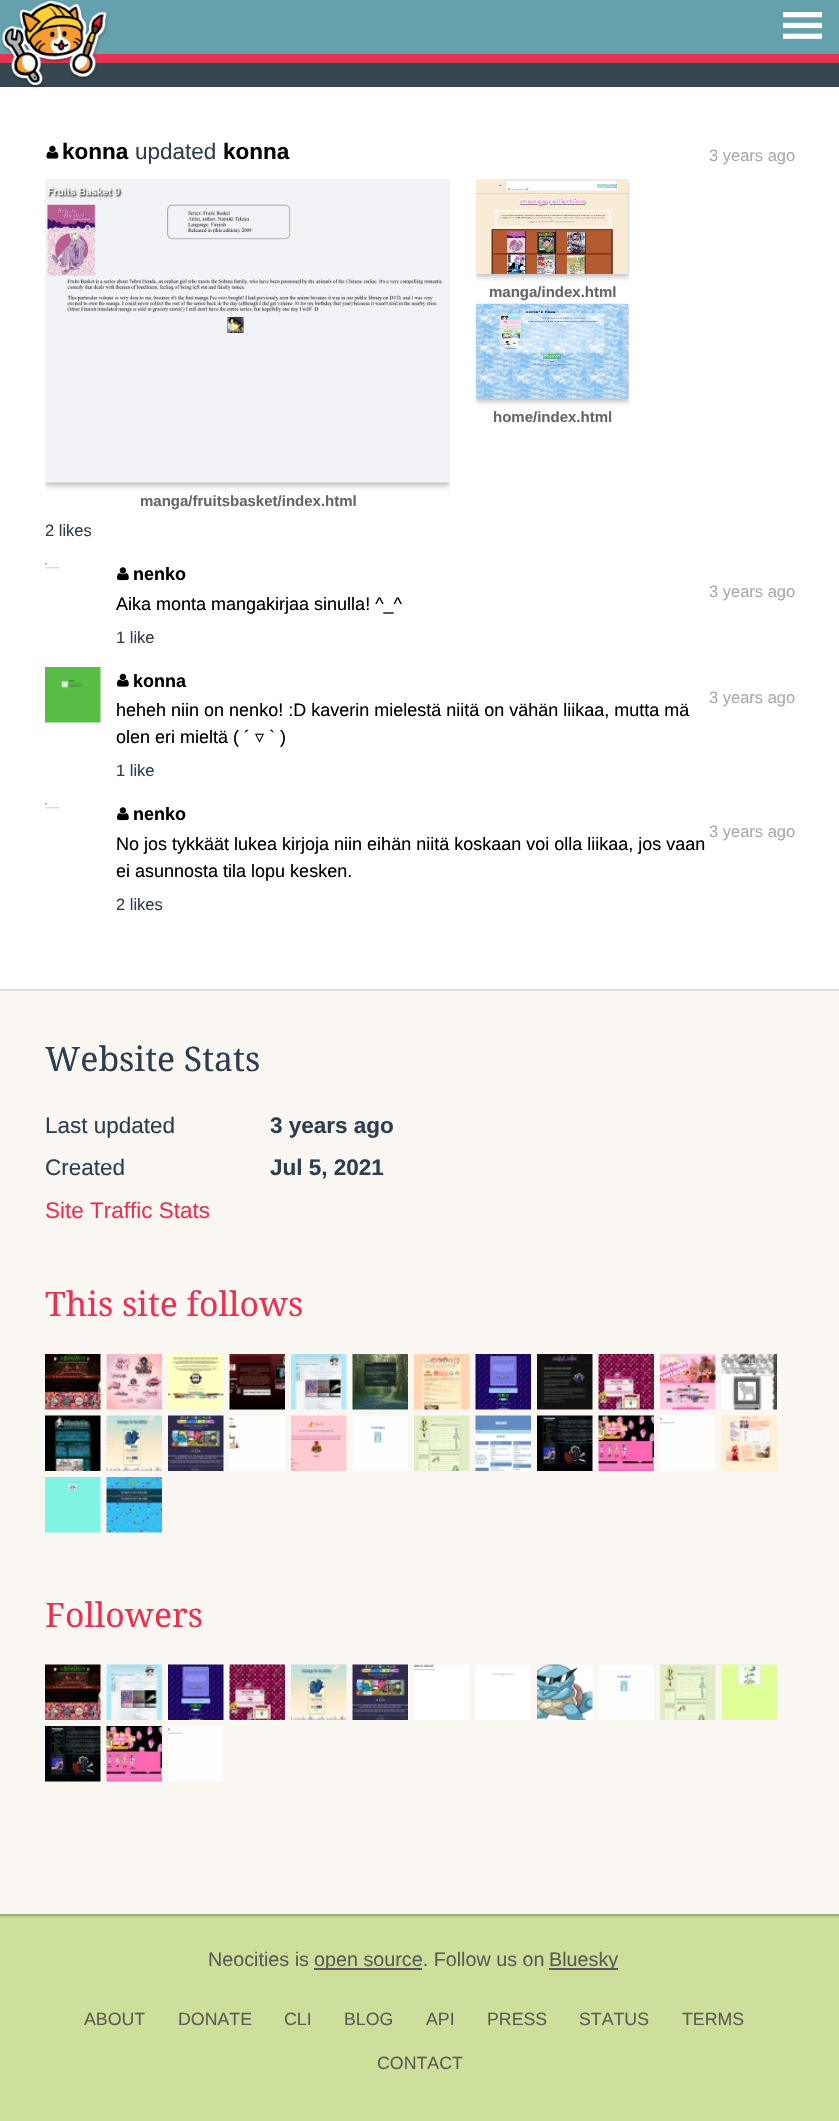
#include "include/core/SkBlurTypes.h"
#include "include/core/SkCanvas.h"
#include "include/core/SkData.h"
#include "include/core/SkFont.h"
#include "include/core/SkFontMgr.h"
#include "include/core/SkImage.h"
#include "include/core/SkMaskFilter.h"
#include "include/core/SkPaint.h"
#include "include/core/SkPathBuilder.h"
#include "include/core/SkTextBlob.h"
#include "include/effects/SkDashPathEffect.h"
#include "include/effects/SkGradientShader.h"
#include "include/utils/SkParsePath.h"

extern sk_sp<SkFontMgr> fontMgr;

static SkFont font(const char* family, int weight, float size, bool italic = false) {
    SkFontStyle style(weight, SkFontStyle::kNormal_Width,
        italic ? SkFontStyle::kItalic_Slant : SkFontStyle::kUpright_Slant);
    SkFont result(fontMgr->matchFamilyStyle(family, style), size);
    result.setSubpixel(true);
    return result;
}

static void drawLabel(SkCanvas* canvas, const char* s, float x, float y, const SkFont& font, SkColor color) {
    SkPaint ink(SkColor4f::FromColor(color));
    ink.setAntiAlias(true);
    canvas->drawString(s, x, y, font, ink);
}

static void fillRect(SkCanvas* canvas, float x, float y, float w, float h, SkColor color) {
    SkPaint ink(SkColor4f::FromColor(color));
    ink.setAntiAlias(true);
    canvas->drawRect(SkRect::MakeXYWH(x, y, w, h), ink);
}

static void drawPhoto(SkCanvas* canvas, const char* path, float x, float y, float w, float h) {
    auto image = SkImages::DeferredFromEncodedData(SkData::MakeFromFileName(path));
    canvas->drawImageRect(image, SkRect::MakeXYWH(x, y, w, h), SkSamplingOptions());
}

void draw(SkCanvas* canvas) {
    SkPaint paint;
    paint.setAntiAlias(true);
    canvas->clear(0xFFCCDF9B);
    fillRect(canvas, 0, 0, 839, 54, 0xFF65A0AD);
    fillRect(canvas, 0, 54, 839, 9, 0xFFE93250);
    {
        const SkColor colors[] = {0xFF2B3C43, 0xFF354751};
        const float stops[] = {0, 1};
        const SkPoint ends[] = {{420, -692}, {420, 87}};
        paint.setShader(SkGradientShader::MakeLinear(ends, colors, stops, 2, SkTileMode::kClamp));
        paint.setAlpha(255);
    }
    canvas->drawRect(SkRect::MakeXYWH(0, 63, 839, 24), paint);
    fillRect(canvas, 0, 1914, 839, 2, 0xFFB3C388);
    paint.setShader(nullptr);
    paint.setColor(0x1A000000);
    paint.setMaskFilter(SkMaskFilter::MakeBlur(kNormal_SkBlurStyle, 1));
    canvas->drawRect(SkRect::MakeXYWH(-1, 87, 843, 1830), paint);
    paint.setMaskFilter(nullptr);
    fillRect(canvas, 0, 87, 839, 902, 0xFFFFFFFF);
    drawPhoto(canvas, "assets/img1.png", 1, 0, 108, 89);
    drawPhoto(canvas, "assets/img2.png", 783, 12, 39, 27);
    fillRect(canvas, 0, 991, 839, 923, 0xFFFAF6F1);
    fillRect(canvas, 0, 989, 839, 2, 0xFFDDDDDD);
    drawPhoto(canvas, "assets/img3.png", 46, 145, 13, 14);
    SkFont font1 = font("Liberation Sans", 700, 22.5f);
    drawLabel(canvas, "konna", 62, 159, font1, 0xFF000000);
    SkFont font2 = font("Liberation Sans", 400, 22.5f);
    drawLabel(canvas, "updated", 135, 159, font2, 0xFF2C3E50);
    drawLabel(canvas, "konna", 223, 159, font1, 0xFF000000);
    SkFont font3 = font("Liberation Sans", 400, 16.5f);
    drawLabel(canvas, "3 years ago", 709, 161, font3, 0xFFAAAAAA);
    canvas->save();
    canvas->clipRect(SkRect::MakeXYWH(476, 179, 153, 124));
    paint.setColor(0x4D000000);
    paint.setMaskFilter(SkMaskFilter::MakeBlur(kNormal_SkBlurStyle, 3));
    canvas->drawRect(SkRect::MakeXYWH(476, 182, 153, 94), paint);
    paint.setMaskFilter(nullptr);
    canvas->restore();
    drawPhoto(canvas, "assets/img4.png", 475, 179, 154, 95);
    SkFont font4 = font("Liberation Sans", 700, 15);
    drawLabel(canvas, "manga/index.html", 489, 297, font4, 0xFF666666);
    canvas->save();
    canvas->clipRect(SkRect::MakeXYWH(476, 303, 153, 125));
    paint.setMaskFilter(SkMaskFilter::MakeBlur(kNormal_SkBlurStyle, 3));
    canvas->drawRect(SkRect::MakeXYWH(476, 306, 153, 95), paint);
    paint.setMaskFilter(nullptr);
    canvas->restore();
    drawPhoto(canvas, "assets/img5.png", 475, 304, 154, 95);
    drawLabel(canvas, "home/index.html", 493, 422, font4, 0xFF666666);
    canvas->save();
    canvas->clipRect(SkRect::MakeXYWH(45, 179, 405, 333));
    paint.setMaskFilter(SkMaskFilter::MakeBlur(kNormal_SkBlurStyle, 3));
    canvas->drawRect(SkRect::MakeXYWH(45, 182, 405, 303), paint);
    paint.setMaskFilter(nullptr);
    canvas->restore();
    drawPhoto(canvas, "assets/img6.png", 45, 180, 405, 303);
    drawLabel(canvas, "manga/fruitsbasket/index.html", 140, 506, font4, 0xFF666666);
    drawLabel(canvas, "2 likes", 45, 536, font3, 0xFF2C3E50);
    drawPhoto(canvas, "assets/img7.png", 45, 562, 15, 7);
    drawPhoto(canvas, "assets/img8.png", 117, 567, 12, 14);
    SkFont font5 = font("Liberation Sans", 700, 18);
    drawLabel(canvas, "nenko", 133, 580, font5, 0xFF000000);
    drawLabel(canvas, "3 years ago", 709, 597, font3, 0xFFAAAAAA);
    SkFont font6 = font("Liberation Sans", 400, 18);
    drawLabel(canvas, "Aika monta mangakirjaa sinulla! ^_^", 116, 610, font6, 0xFF000000);
    drawLabel(canvas, "1 like", 116, 643, font3, 0xFF2C3E50);
    drawPhoto(canvas, "assets/img9.png", 45, 667, 56, 56);
    drawPhoto(canvas, "assets/img10.png", 117, 673, 12, 14);
    drawLabel(canvas, "konna", 133, 687, font5, 0xFF000000);
    drawLabel(canvas, "3 years ago", 709, 703, font3, 0xFFAAAAAA);
    drawLabel(canvas, "heheh niin on nenko! :D kaverin mielestä niitä on vähän liikaa, mutta mä", 116, 716, font6, 0xFF000000);
    drawLabel(canvas, "olen eri mieltä ( ´", 116, 743, font6, 0xFF000000);
    SkFont font7 = font("DejaVu Sans", 400, 18);
    drawLabel(canvas, "▿", 255, 743, font7, 0xFF000000);
    drawLabel(canvas, "` )", 269, 743, font6, 0xFF000000);
    drawLabel(canvas, "1 like", 116, 776, font3, 0xFF2C3E50);
    drawPhoto(canvas, "assets/img7.png", 45, 802, 15, 7);
    drawPhoto(canvas, "assets/img8.png", 117, 807, 12, 14);
    drawLabel(canvas, "nenko", 133, 820, font5, 0xFF000000);
    drawLabel(canvas, "3 years ago", 709, 837, font3, 0xFFAAAAAA);
    drawLabel(canvas, "No jos tykkäät lukea kirjoja niin eihän niitä koskaan voi olla liikaa, jos vaan", 116, 850, font6, 0xFF000000);
    drawLabel(canvas, "ei asunnosta tila lopu kesken.", 116, 877, font6, 0xFF000000);
    drawLabel(canvas, "2 likes", 116, 910, font3, 0xFF2C3E50);
    SkFont font8 = font("Droid Serif", 400, 33.75f);
    drawLabel(canvas, "Website Stats", 45, 1071, font8, 0xFF2C3E50);
    drawLabel(canvas, "Last updated", 45, 1133, font2, 0xFF2C3E50);
    drawLabel(canvas, "3 years ago", 270, 1133, font1, 0xFF2C3E50);
    drawLabel(canvas, "Created", 45, 1175, font2, 0xFF2C3E50);
    drawLabel(canvas, "Jul 5, 2021", 270, 1175, font1, 0xFF2C3E50);
    drawLabel(canvas, "Site Traffic Stats", 45, 1218, font2, 0xFFE93250);
    drawLabel(canvas, "This site follows", 45, 1316, font8, 0xFFE93250);
    drawPhoto(canvas, "assets/img11.png", 45, 1354, 56, 56);
    drawPhoto(canvas, "assets/img12.png", 106, 1354, 56, 56);
    drawPhoto(canvas, "assets/img13.png", 168, 1354, 56, 56);
    drawPhoto(canvas, "assets/img14.png", 229, 1354, 56, 56);
    drawPhoto(canvas, "assets/img15.png", 291, 1354, 56, 56);
    drawPhoto(canvas, "assets/img16.png", 352, 1354, 56, 56);
    drawPhoto(canvas, "assets/img17.png", 414, 1354, 56, 56);
    drawPhoto(canvas, "assets/img18.png", 475, 1354, 56, 56);
    drawPhoto(canvas, "assets/img19.png", 537, 1354, 56, 56);
    drawPhoto(canvas, "assets/img20.png", 598, 1354, 56, 56);
    drawPhoto(canvas, "assets/img21.png", 660, 1354, 56, 56);
    drawPhoto(canvas, "assets/img22.png", 721, 1354, 56, 56);
    drawPhoto(canvas, "assets/img23.png", 45, 1415, 56, 56);
    drawPhoto(canvas, "assets/img24.png", 106, 1415, 56, 56);
    drawPhoto(canvas, "assets/img25.png", 168, 1415, 56, 56);
    drawPhoto(canvas, "assets/img26.png", 229, 1415, 56, 56);
    drawPhoto(canvas, "assets/img27.png", 291, 1415, 56, 56);
    drawPhoto(canvas, "assets/img28.png", 352, 1415, 56, 56);
    drawPhoto(canvas, "assets/img29.png", 414, 1415, 56, 56);
    drawPhoto(canvas, "assets/img30.png", 475, 1415, 56, 56);
    drawPhoto(canvas, "assets/img31.png", 537, 1415, 56, 56);
    drawPhoto(canvas, "assets/img32.png", 598, 1415, 56, 56);
    drawPhoto(canvas, "assets/img33.png", 660, 1415, 56, 56);
    drawPhoto(canvas, "assets/img34.png", 721, 1415, 56, 56);
    drawPhoto(canvas, "assets/img35.png", 45, 1477, 56, 56);
    drawPhoto(canvas, "assets/img36.png", 106, 1477, 56, 56);
    drawLabel(canvas, "Followers", 45, 1627, font8, 0xFFE93250);
    drawPhoto(canvas, "assets/img37.png", 45, 1664, 56, 56);
    drawPhoto(canvas, "assets/img38.png", 106, 1664, 56, 56);
    drawPhoto(canvas, "assets/img39.png", 168, 1664, 56, 56);
    drawPhoto(canvas, "assets/img40.png", 229, 1664, 56, 56);
    drawPhoto(canvas, "assets/img41.png", 291, 1664, 56, 56);
    drawPhoto(canvas, "assets/img42.png", 352, 1664, 56, 56);
    drawPhoto(canvas, "assets/img43.png", 414, 1664, 56, 56);
    drawPhoto(canvas, "assets/img44.png", 475, 1664, 56, 56);
    drawPhoto(canvas, "assets/img45.png", 537, 1664, 56, 56);
    drawPhoto(canvas, "assets/img28.png", 598, 1664, 56, 56);
    drawPhoto(canvas, "assets/img29.png", 660, 1664, 56, 56);
    drawPhoto(canvas, "assets/img46.png", 721, 1664, 56, 56);
    drawPhoto(canvas, "assets/img47.png", 45, 1726, 56, 56);
    drawPhoto(canvas, "assets/img48.png", 106, 1726, 56, 56);
    drawPhoto(canvas, "assets/img49.png", 168, 1726, 56, 56);
    SkFont font9 = font("Liberation Sans", 400, 19.75f);
    drawLabel(canvas, "Neocities is", 208, 1966, font9, 0xFF5E5B56);
    fillRect(canvas, 314, 1968, 108, 2, 0xFF5E5B56);
    drawLabel(canvas, "open source. Follow us on", 314, 1966, font9, 0xFF5E5B56);
    fillRect(canvas, 549, 1968, 69, 2, 0xFF5E5B56);
    drawLabel(canvas, "Bluesky", 549, 1966, font9, 0xFF5E5B56);
    SkFont font10 = font("Liberation Sans", 400, 17.75f);
    drawLabel(canvas, "ABOUT", 84, 2025, font10, 0xFF5E5B56);
    drawLabel(canvas, "DONATE", 178, 2025, font10, 0xFF5E5B56);
    drawLabel(canvas, "CLI", 284, 2025, font10, 0xFF5E5B56);
    drawLabel(canvas, "BLOG", 344, 2025, font10, 0xFF5E5B56);
    drawLabel(canvas, "API", 426, 2025, font10, 0xFF5E5B56);
    drawLabel(canvas, "PRESS", 487, 2025, font10, 0xFF5E5B56);
    drawLabel(canvas, "STATUS", 579, 2025, font10, 0xFF5E5B56);
    drawLabel(canvas, "TERMS", 682, 2025, font10, 0xFF5E5B56);
    drawLabel(canvas, "CONTACT", 377, 2069, font10, 0xFF5E5B56);
}
